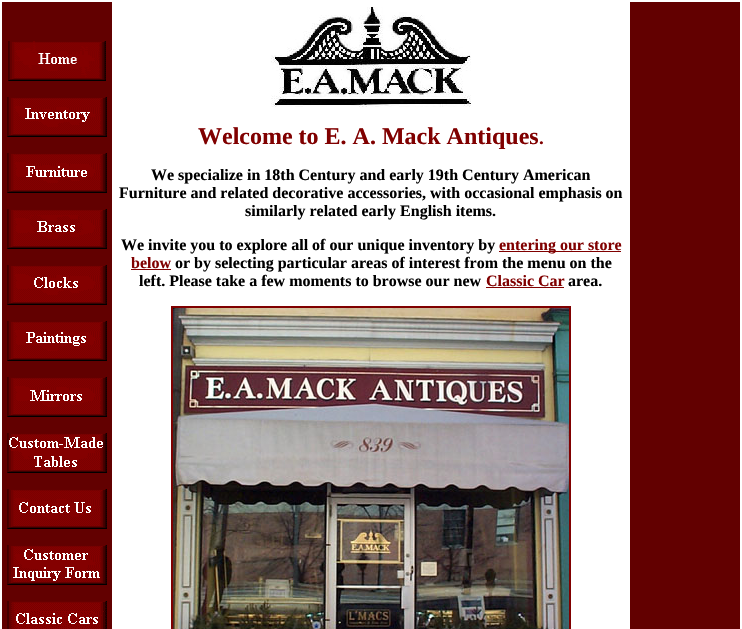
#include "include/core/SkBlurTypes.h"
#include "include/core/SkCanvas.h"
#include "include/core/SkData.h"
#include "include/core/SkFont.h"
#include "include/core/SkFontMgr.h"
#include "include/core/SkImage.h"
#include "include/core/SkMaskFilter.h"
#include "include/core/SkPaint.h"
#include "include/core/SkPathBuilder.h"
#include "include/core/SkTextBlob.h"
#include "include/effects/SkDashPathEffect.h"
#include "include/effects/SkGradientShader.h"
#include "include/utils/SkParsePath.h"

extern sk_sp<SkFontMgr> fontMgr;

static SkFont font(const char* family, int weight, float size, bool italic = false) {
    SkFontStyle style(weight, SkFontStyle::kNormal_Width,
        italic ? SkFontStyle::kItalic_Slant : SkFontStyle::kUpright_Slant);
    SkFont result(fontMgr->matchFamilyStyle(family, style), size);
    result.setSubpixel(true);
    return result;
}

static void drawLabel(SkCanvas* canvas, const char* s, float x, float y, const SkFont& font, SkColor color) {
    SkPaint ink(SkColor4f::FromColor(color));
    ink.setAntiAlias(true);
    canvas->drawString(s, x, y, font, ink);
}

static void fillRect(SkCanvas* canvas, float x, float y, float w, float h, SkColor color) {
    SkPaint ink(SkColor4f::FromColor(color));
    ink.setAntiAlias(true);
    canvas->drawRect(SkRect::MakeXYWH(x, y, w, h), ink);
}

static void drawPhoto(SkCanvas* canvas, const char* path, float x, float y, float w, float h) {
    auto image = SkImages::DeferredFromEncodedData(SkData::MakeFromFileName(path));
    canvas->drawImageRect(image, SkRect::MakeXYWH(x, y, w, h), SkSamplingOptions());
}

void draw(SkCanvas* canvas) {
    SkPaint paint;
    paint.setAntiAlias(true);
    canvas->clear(0xFFFFFFFF);
    fillRect(canvas, 2, 2, 110, 627, 0xFF620000);
    drawPhoto(canvas, "assets/img1.png", 8, 41, 98, 40);
    drawPhoto(canvas, "assets/img2.png", 7, 97, 100, 40);
    drawPhoto(canvas, "assets/img3.png", 7, 153, 100, 40);
    drawPhoto(canvas, "assets/img4.png", 7, 209, 100, 40);
    drawPhoto(canvas, "assets/img5.png", 7, 265, 100, 40);
    drawPhoto(canvas, "assets/img6.png", 7, 321, 100, 40);
    drawPhoto(canvas, "assets/img7.png", 7, 377, 100, 40);
    drawPhoto(canvas, "assets/img8.png", 7, 433, 100, 40);
    drawPhoto(canvas, "assets/img9.png", 7, 489, 100, 40);
    drawPhoto(canvas, "assets/img10.png", 7, 545, 100, 40);
    drawPhoto(canvas, "assets/img11.png", 7, 601, 100, 28);
    drawPhoto(canvas, "assets/img12.png", 271, 7, 200, 100);
    SkFont font1 = font("Liberation Serif", 700, 24);
    drawLabel(canvas, "Welcome to E. A. Mack Antiques", 198, 144, font1, 0xFF800000);
    SkFont font2 = font("Liberation Serif", 700, 19);
    drawLabel(canvas, ".", 539, 144, font2, 0xFF800000);
    SkFont font3 = font("Liberation Serif", 700, 16);
    drawLabel(canvas, "We specialize in 18th Century and early 19th Century American", 151, 180, font3, 0xFF000000);
    drawLabel(canvas, "Furniture and related decorative accessories, with occasional emphasis on", 119, 198, font3, 0xFF000000);
    drawLabel(canvas, "similarly related early English items.", 245, 216, font3, 0xFF000000);
    drawLabel(canvas, "We invite you to explore all of our unique inventory by", 121, 250, font3, 0xFF000000);
    fillRect(canvas, 499, 251, 122, 1, 0xFF800000);
    drawLabel(canvas, "entering our store", 499, 250, font3, 0xFF800000);
    drawLabel(canvas, "below", 131, 268, font3, 0xFF800000);
    fillRect(canvas, 131, 269, 40, 1, 0xFF800000);
    drawLabel(canvas, "or by selecting particular areas of interest from the menu on the", 175, 268, font3, 0xFF000000);
    drawLabel(canvas, "left. Please take a few moments to browse our new", 139, 286, font3, 0xFF000000);
    drawLabel(canvas, "Classic Car", 486, 286, font3, 0xFF800000);
    fillRect(canvas, 486, 287, 78, 1, 0xFF800000);
    drawLabel(canvas, "area.", 568, 286, font3, 0xFF000000);
    paint.setStroke(true);
    paint.setStrokeWidth(2);
    paint.setColor(0xFF800000);
    canvas->drawRect(SkRect::MakeXYWH(172, 307, 398, 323), paint);
    drawPhoto(canvas, "assets/img13.png", 173, 308, 396, 321);
    fillRect(canvas, 630, 2, 110, 627, 0xFF620000);
}
